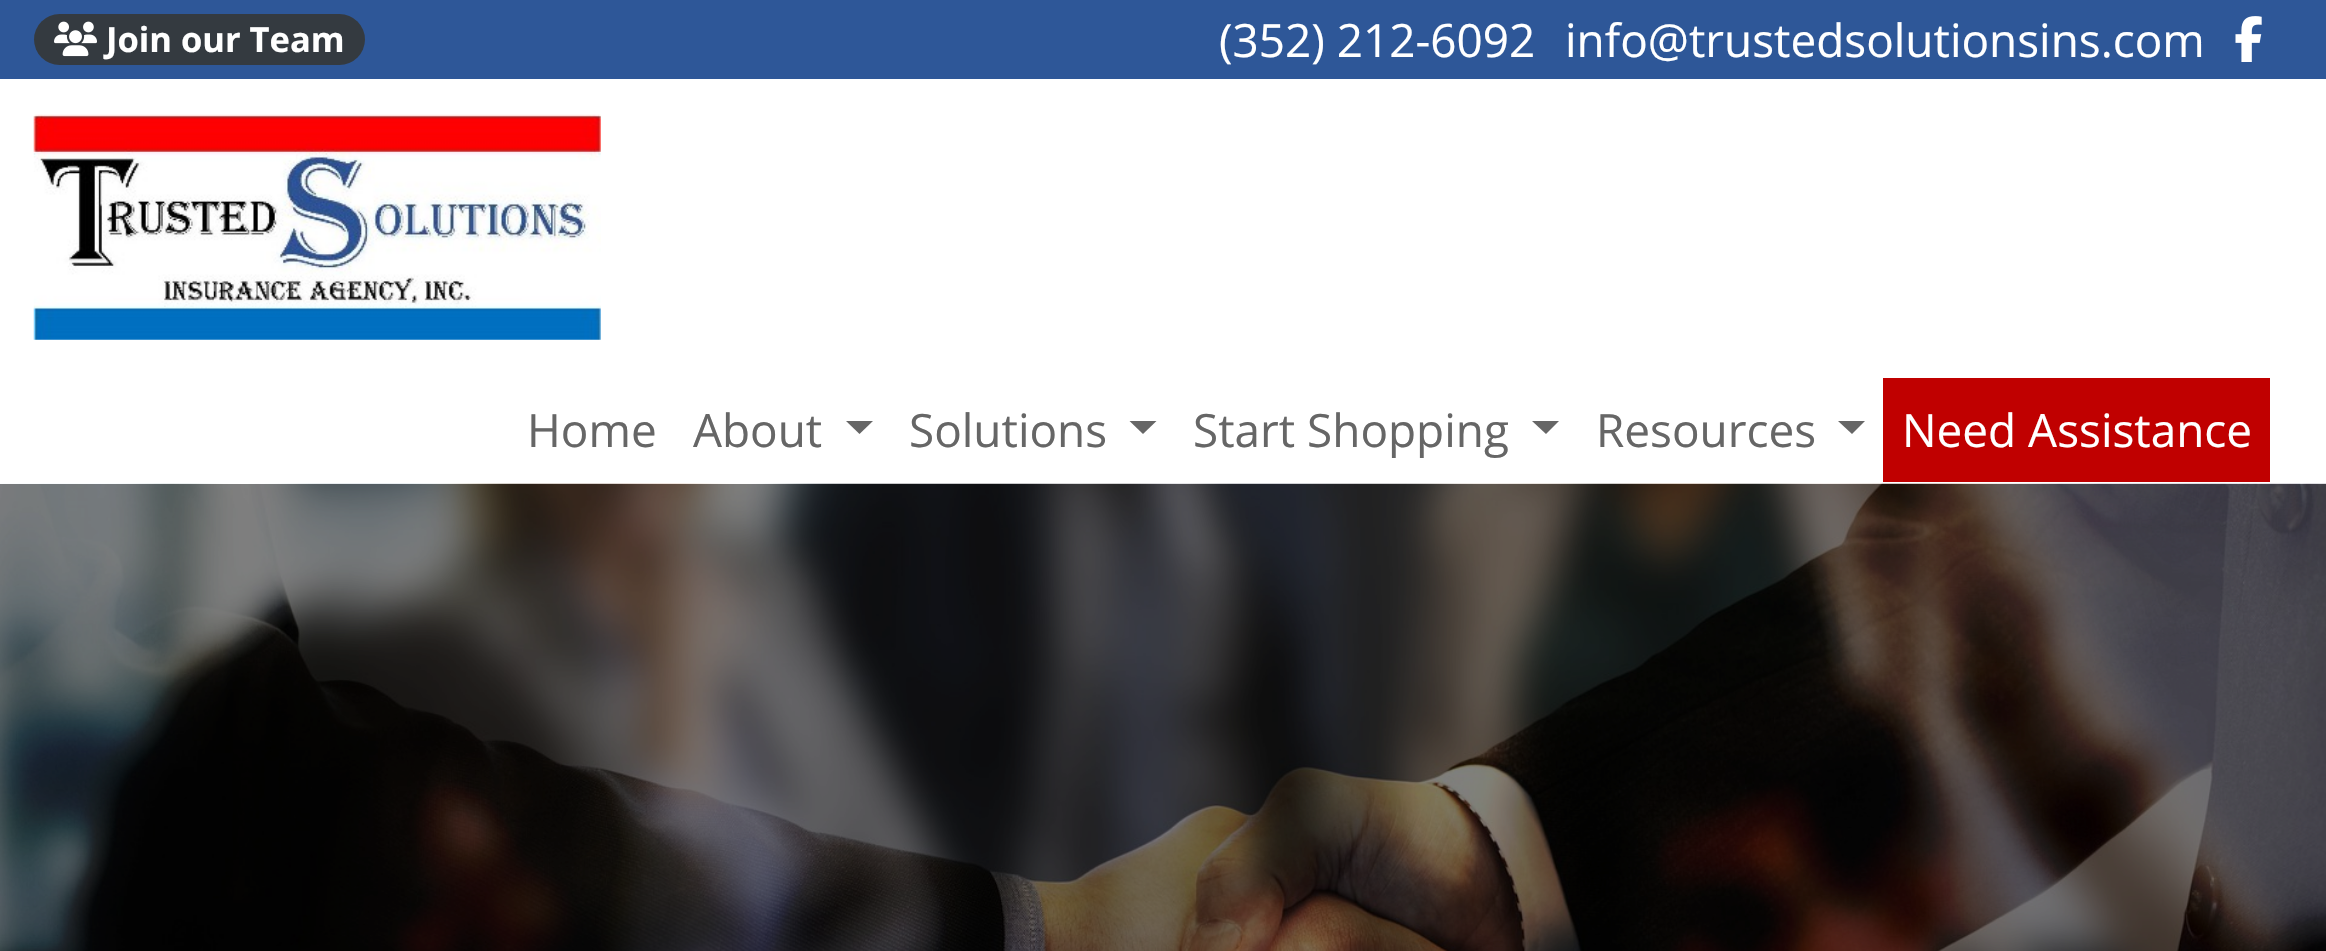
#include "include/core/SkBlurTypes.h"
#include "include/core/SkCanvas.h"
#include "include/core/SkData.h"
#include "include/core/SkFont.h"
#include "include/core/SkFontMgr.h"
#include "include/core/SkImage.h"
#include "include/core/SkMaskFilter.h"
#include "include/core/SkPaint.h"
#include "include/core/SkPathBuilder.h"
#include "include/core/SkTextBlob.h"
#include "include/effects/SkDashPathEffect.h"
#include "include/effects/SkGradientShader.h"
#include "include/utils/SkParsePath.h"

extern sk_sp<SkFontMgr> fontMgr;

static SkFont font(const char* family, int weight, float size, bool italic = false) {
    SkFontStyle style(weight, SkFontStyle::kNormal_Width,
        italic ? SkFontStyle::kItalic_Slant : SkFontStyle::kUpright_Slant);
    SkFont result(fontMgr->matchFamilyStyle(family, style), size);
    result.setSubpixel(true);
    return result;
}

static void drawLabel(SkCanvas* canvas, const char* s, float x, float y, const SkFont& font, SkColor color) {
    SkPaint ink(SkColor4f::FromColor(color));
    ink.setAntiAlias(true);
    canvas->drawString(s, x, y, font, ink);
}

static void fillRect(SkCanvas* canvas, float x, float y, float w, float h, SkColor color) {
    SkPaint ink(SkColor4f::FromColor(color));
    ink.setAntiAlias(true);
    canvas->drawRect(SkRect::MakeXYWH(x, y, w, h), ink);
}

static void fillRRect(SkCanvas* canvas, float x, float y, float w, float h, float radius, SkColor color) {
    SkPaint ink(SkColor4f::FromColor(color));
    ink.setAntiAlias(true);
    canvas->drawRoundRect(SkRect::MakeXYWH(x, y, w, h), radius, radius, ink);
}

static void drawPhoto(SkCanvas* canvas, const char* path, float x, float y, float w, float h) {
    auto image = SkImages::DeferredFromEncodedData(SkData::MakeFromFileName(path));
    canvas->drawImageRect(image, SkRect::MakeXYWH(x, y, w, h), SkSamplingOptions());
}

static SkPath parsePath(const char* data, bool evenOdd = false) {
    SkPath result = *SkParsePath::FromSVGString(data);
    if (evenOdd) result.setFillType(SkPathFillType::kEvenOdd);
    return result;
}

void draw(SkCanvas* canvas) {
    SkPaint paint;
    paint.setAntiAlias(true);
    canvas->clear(0xFFFFFFFF);
    fillRect(canvas, 0, 0, 2326, 79, 0xFF2E5798);
    fillRRect(canvas, 34, 14, 331, 51, 25.5f, 0xFF343A40);
    drawPhoto(canvas, "assets/img1.png", 54, 21, 43, 36);
    SkFont font1 = font("Open Sans", 700, 34.5f);
    drawLabel(canvas, "Join our Team", 106, 52, font1, 0xFFFFFFFF);
    SkFont font2 = font("Open Sans", 400, 45.9f);
    drawLabel(canvas, "(352) 212-6092", 1219, 57, font2, 0xFFFFFFFF);
    drawLabel(canvas, "info@trustedsolutionsins.com", 1565, 57, font2, 0xFFFFFFFF);
    drawPhoto(canvas, "assets/img2.png", 2235, 16, 27, 46);
    drawPhoto(canvas, "assets/img3.png", 33, 114, 568, 226);
    drawLabel(canvas, "Home", 527, 447, font2, 0xFF666666);
    drawLabel(canvas, "About", 693, 447, font2, 0xFF666666);
    paint.setColor(0xFF666666);
    canvas->drawPath(parsePath("M846 421H873L859.5 434Z"), paint);
    drawLabel(canvas, "Solutions", 909, 447, font2, 0xFF666666);
    canvas->drawPath(parsePath("M1129.5 421H1156.5L1143 434Z"), paint);
    drawLabel(canvas, "Start Shopping", 1193, 447, font2, 0xFF666666);
    canvas->drawPath(parsePath("M1532 421H1559L1546 434Z"), paint);
    drawLabel(canvas, "Resources", 1596, 447, font2, 0xFF666666);
    canvas->drawPath(parsePath("M1838 421H1865L1852 434Z"), paint);
    fillRect(canvas, 1883, 378, 387, 104, 0xFFC00000);
    drawLabel(canvas, "Need Assistance", 1902, 447, font2, 0xFFFFFFFF);
    drawPhoto(canvas, "assets/img4.png", 0, 483, 2326, 468);
}
